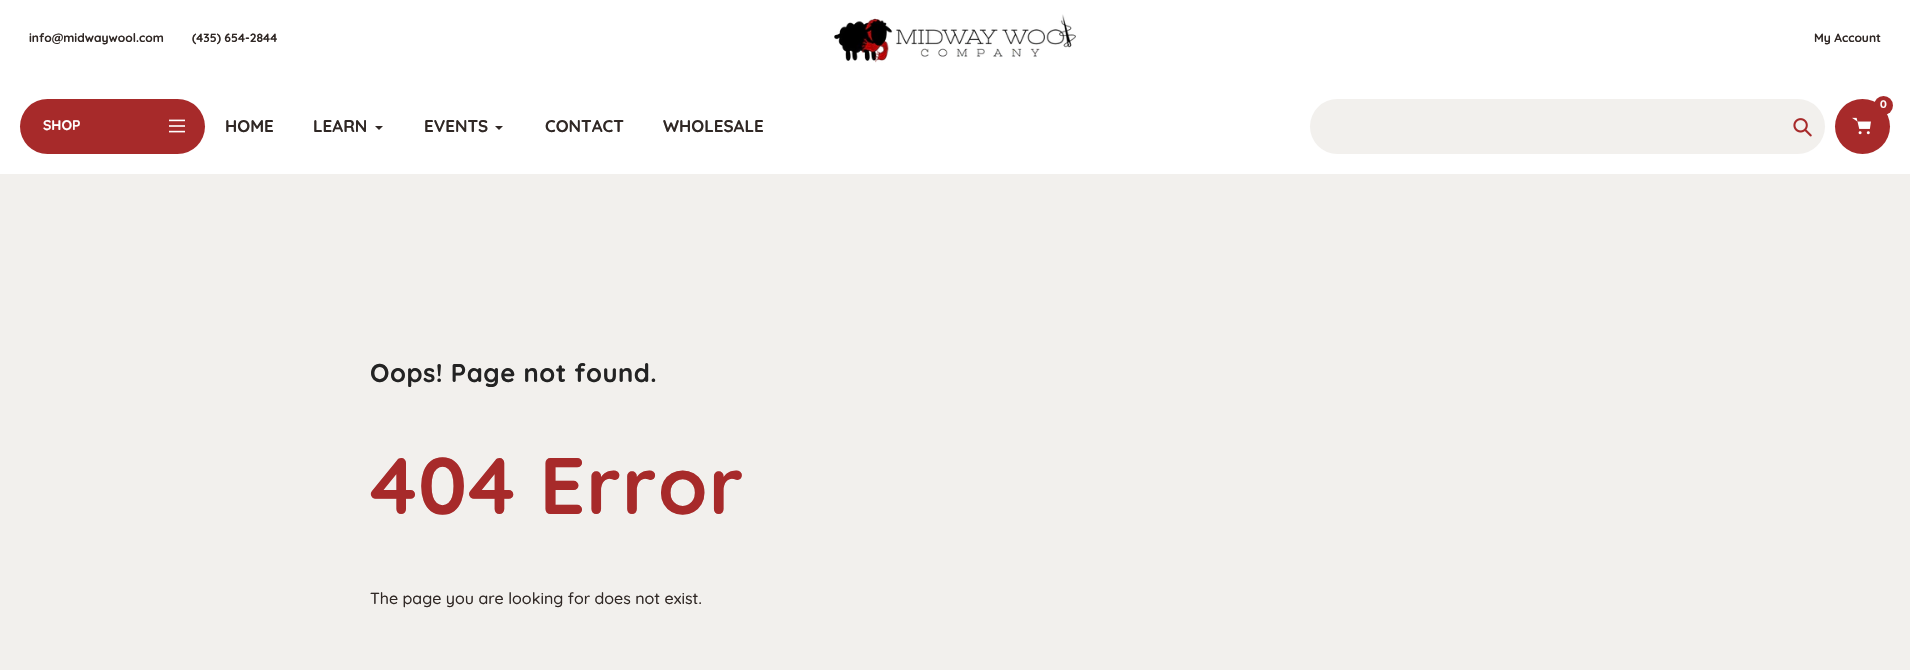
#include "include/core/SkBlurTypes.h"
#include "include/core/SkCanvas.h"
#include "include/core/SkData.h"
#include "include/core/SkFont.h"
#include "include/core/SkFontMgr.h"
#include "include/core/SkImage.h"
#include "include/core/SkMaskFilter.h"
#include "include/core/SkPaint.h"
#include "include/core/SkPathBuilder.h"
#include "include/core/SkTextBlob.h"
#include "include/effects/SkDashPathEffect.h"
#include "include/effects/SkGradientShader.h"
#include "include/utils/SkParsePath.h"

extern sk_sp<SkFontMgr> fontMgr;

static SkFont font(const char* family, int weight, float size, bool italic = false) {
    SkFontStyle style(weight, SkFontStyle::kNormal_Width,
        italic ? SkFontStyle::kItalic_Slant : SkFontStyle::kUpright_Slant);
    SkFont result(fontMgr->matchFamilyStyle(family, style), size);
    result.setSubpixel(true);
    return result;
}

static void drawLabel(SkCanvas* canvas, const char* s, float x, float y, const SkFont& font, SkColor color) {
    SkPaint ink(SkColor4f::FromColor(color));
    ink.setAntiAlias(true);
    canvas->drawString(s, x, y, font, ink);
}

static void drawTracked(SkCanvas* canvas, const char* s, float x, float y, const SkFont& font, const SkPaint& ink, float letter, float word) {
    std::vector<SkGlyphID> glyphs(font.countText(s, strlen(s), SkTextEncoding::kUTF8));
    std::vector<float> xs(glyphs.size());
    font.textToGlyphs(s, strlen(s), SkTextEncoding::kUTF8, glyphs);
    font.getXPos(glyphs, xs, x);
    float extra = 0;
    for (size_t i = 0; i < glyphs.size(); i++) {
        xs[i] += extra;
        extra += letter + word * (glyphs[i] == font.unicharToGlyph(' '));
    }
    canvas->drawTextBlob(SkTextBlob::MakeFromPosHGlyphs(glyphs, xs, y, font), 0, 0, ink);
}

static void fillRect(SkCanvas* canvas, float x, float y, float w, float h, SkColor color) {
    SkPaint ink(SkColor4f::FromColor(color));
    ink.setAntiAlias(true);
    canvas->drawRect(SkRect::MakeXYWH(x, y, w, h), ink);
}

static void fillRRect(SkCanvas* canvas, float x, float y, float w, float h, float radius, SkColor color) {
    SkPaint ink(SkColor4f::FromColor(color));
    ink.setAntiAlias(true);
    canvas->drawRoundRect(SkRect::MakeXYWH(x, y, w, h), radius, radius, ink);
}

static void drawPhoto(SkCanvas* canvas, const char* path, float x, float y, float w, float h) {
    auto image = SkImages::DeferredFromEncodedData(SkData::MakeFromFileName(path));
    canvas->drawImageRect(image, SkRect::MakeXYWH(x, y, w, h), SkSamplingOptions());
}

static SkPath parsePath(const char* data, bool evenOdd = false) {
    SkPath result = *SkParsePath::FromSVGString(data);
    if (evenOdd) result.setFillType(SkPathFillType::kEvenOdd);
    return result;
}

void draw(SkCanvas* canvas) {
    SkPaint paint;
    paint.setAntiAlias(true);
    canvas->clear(0xFFF2F0ED);
    fillRect(canvas, 0, 0, 1910, 174, 0xFFFFFFFF);
    SkFont font1 = font("Quicksand", 700, 12);
    drawLabel(canvas, "info@midwaywool.com", 29, 42, font1, 0xFF302825);
    drawLabel(canvas, "(435) 654-2844", 192, 42, font1, 0xFF302825);
    drawPhoto(canvas, "assets/img1.png", 834, 14, 242, 49);
    drawLabel(canvas, "My Account", 1814, 42, font1, 0xFF302825);
    fillRRect(canvas, 1310, 99, 515, 55, 27.5f, 0xFFF2F0ED);
    drawPhoto(canvas, "assets/img2.png", 1793, 118, 19, 19);
    paint.setColor(0xFFA72A2A);
    canvas->drawCircle(1862.5f, 126.5f, 27.5f, paint);
    canvas->drawCircle(1883.5f, 105.5f, 9.5f, paint);
    SkFont font2 = font("Quicksand", 700, 11);
    drawLabel(canvas, "0", 1880, 108, font2, 0xFFFFFFFF);
    drawPhoto(canvas, "assets/img3.png", 1852, 117, 19, 18);
    fillRRect(canvas, 20, 99, 185, 55, 27.5f, 0xFFA72A2A);
    SkFont font3 = font("Quicksand", 700, 14);
    drawLabel(canvas, "SHOP", 43, 130, font3, 0xFFFFFFFF);
    drawPhoto(canvas, "assets/img4.png", 169, 119, 16, 14);
    SkFont font4 = font("Quicksand", 700, 17);
    drawLabel(canvas, "HOME", 225, 132, font4, 0xFF302825);
    drawLabel(canvas, "LEARN", 313, 132, font4, 0xFF302825);
    paint.setColor(0xFF302825);
    canvas->drawPath(parsePath("M383 126L379 130L375 126"), paint);
    drawLabel(canvas, "EVENTS", 424, 132, font4, 0xFF302825);
    canvas->drawPath(parsePath("M503 126L499 130L495 126"), paint);
    drawLabel(canvas, "CONTACT", 545, 132, font4, 0xFF302825);
    drawLabel(canvas, "WHOLESALE", 663, 132, font4, 0xFF302825);
    SkFont font5 = font("Quicksand", 700, 25.6f);
    paint.setColor(0xFF232323);
    drawTracked(canvas, "Oops! Page not found.", 370, 382, font5, paint, 0.5f, 0);
    SkFont font6 = font("Quicksand", 700, 80);
    paint.setColor(0xFFA72A2A);
    drawTracked(canvas, "404 Error", 370, 514, font6, paint, 1, 0);
    SkFont font7 = font("Quicksand", 500, 16);
    drawLabel(canvas, "The page you are looking for does not exist.", 370, 604, font7, 0xFF302825);
}
